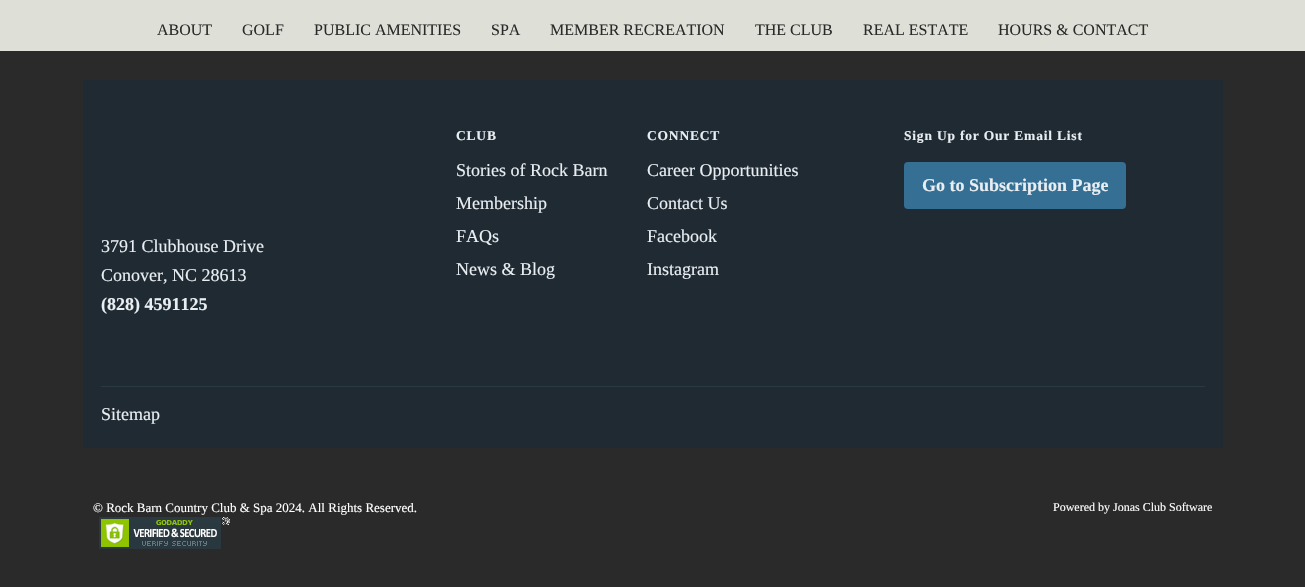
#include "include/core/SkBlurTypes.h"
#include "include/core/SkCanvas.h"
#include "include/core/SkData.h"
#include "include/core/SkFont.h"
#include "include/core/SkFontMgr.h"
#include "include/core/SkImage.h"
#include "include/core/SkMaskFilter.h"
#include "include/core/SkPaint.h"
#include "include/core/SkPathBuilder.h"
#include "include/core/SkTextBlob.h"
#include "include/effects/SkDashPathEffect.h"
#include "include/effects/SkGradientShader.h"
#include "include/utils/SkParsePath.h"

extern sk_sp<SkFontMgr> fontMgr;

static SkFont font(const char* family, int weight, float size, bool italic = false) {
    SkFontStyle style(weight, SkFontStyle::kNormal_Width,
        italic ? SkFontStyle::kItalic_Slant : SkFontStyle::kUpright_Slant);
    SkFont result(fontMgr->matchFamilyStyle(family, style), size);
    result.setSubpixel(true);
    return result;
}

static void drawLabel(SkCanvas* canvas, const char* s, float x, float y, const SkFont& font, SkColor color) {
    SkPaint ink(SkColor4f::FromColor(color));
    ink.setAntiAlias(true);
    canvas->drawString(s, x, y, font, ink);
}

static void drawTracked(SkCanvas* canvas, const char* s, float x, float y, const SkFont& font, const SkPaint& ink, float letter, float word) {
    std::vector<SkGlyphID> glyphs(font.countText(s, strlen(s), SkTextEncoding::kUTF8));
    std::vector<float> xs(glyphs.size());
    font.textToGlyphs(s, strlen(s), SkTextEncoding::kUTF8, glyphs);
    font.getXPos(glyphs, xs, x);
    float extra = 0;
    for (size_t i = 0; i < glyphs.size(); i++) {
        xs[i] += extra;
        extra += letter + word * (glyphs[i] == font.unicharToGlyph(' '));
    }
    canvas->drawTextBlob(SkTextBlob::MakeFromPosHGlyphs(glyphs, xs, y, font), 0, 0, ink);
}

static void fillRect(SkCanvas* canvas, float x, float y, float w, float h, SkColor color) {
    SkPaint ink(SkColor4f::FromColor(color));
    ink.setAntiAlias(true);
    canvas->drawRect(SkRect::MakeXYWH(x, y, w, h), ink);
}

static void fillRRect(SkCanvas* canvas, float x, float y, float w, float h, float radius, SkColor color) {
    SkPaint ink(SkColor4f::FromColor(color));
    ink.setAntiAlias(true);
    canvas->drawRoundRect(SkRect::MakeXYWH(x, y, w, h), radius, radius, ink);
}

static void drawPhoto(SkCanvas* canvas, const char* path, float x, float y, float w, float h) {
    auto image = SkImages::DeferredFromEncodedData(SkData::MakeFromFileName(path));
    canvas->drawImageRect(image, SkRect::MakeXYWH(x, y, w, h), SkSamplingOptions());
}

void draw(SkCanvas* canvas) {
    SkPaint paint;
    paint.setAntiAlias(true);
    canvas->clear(0xFF2A2A2A);
    fillRect(canvas, 0, 0, 1305, 51, 0xFFDEE0D7);
    SkFont font1 = font("Liberation Serif", 400, 16);
    drawLabel(canvas, "ABOUT", 157, 35, font1, 0xFF2A2A2A);
    drawLabel(canvas, "GOLF", 242, 35, font1, 0xFF2A2A2A);
    drawLabel(canvas, "PUBLIC AMENITIES", 314, 35, font1, 0xFF2A2A2A);
    drawLabel(canvas, "SPA", 491, 35, font1, 0xFF2A2A2A);
    drawLabel(canvas, "MEMBER RECREATION", 550, 35, font1, 0xFF2A2A2A);
    drawLabel(canvas, "THE CLUB", 755, 35, font1, 0xFF2A2A2A);
    drawLabel(canvas, "REAL ESTATE", 863, 35, font1, 0xFF2A2A2A);
    drawLabel(canvas, "HOURS & CONTACT", 998, 35, font1, 0xFF2A2A2A);
    fillRect(canvas, 83, 80, 1140, 368, 0xFF1F2A32);
    SkFont font2 = font("Liberation Serif", 400, 18);
    drawLabel(canvas, "3791 Clubhouse Drive", 101, 252, font2, 0xFFE9EEF2);
    drawLabel(canvas, "Conover, NC 28613", 101, 281, font2, 0xFFE9EEF2);
    SkFont font3 = font("Liberation Serif", 700, 18);
    drawLabel(canvas, "(828) 459‑1125", 101, 310, font3, 0xFFE9EEF2);
    SkFont font4 = font("Liberation Serif", 700, 13.5f);
    paint.setColor(0xFFE9EEF2);
    drawTracked(canvas, "CLUB", 456, 140, font4, paint, 0.8f, 0);
    drawLabel(canvas, "Stories of Rock Barn", 456, 176, font2, 0xFFE9EEF2);
    drawLabel(canvas, "Membership", 456, 209, font2, 0xFFE9EEF2);
    drawLabel(canvas, "FAQs", 456, 242, font2, 0xFFE9EEF2);
    drawLabel(canvas, "News & Blog", 456, 275, font2, 0xFFE9EEF2);
    drawTracked(canvas, "CONNECT", 647, 140, font4, paint, 0.8f, 0);
    drawLabel(canvas, "Career Opportunities", 647, 176, font2, 0xFFE9EEF2);
    drawLabel(canvas, "Contact Us", 647, 209, font2, 0xFFE9EEF2);
    drawLabel(canvas, "Facebook", 647, 242, font2, 0xFFE9EEF2);
    drawLabel(canvas, "Instagram", 647, 275, font2, 0xFFE9EEF2);
    drawTracked(canvas, "Sign Up for Our Email List", 904, 140, font4, paint, 0.8f, 0);
    fillRRect(canvas, 904, 162, 222, 47, 4, 0xFF356F93);
    drawLabel(canvas, "Go to Subscription Page", 922, 191, font3, 0xFFE9EEF2);
    fillRect(canvas, 101, 386, 1104, 1, 0xFF2B3943);
    drawLabel(canvas, "Sitemap", 101, 420, font2, 0xFFE9EEF2);
    SkFont font5 = font("Liberation Serif", 400, 13);
    drawLabel(canvas, "© Rock Barn Country Club & Spa 2024. All Rights Reserved.", 93, 512, font5, 0xFFFFFFFF);
    drawPhoto(canvas, "assets/img1.png", 99, 517, 131, 32);
    SkFont font6 = font("Liberation Serif", 400, 12);
    drawLabel(canvas, "Powered by Jonas Club Software", 1053, 511, font6, 0xFFFFFFFF);
}
